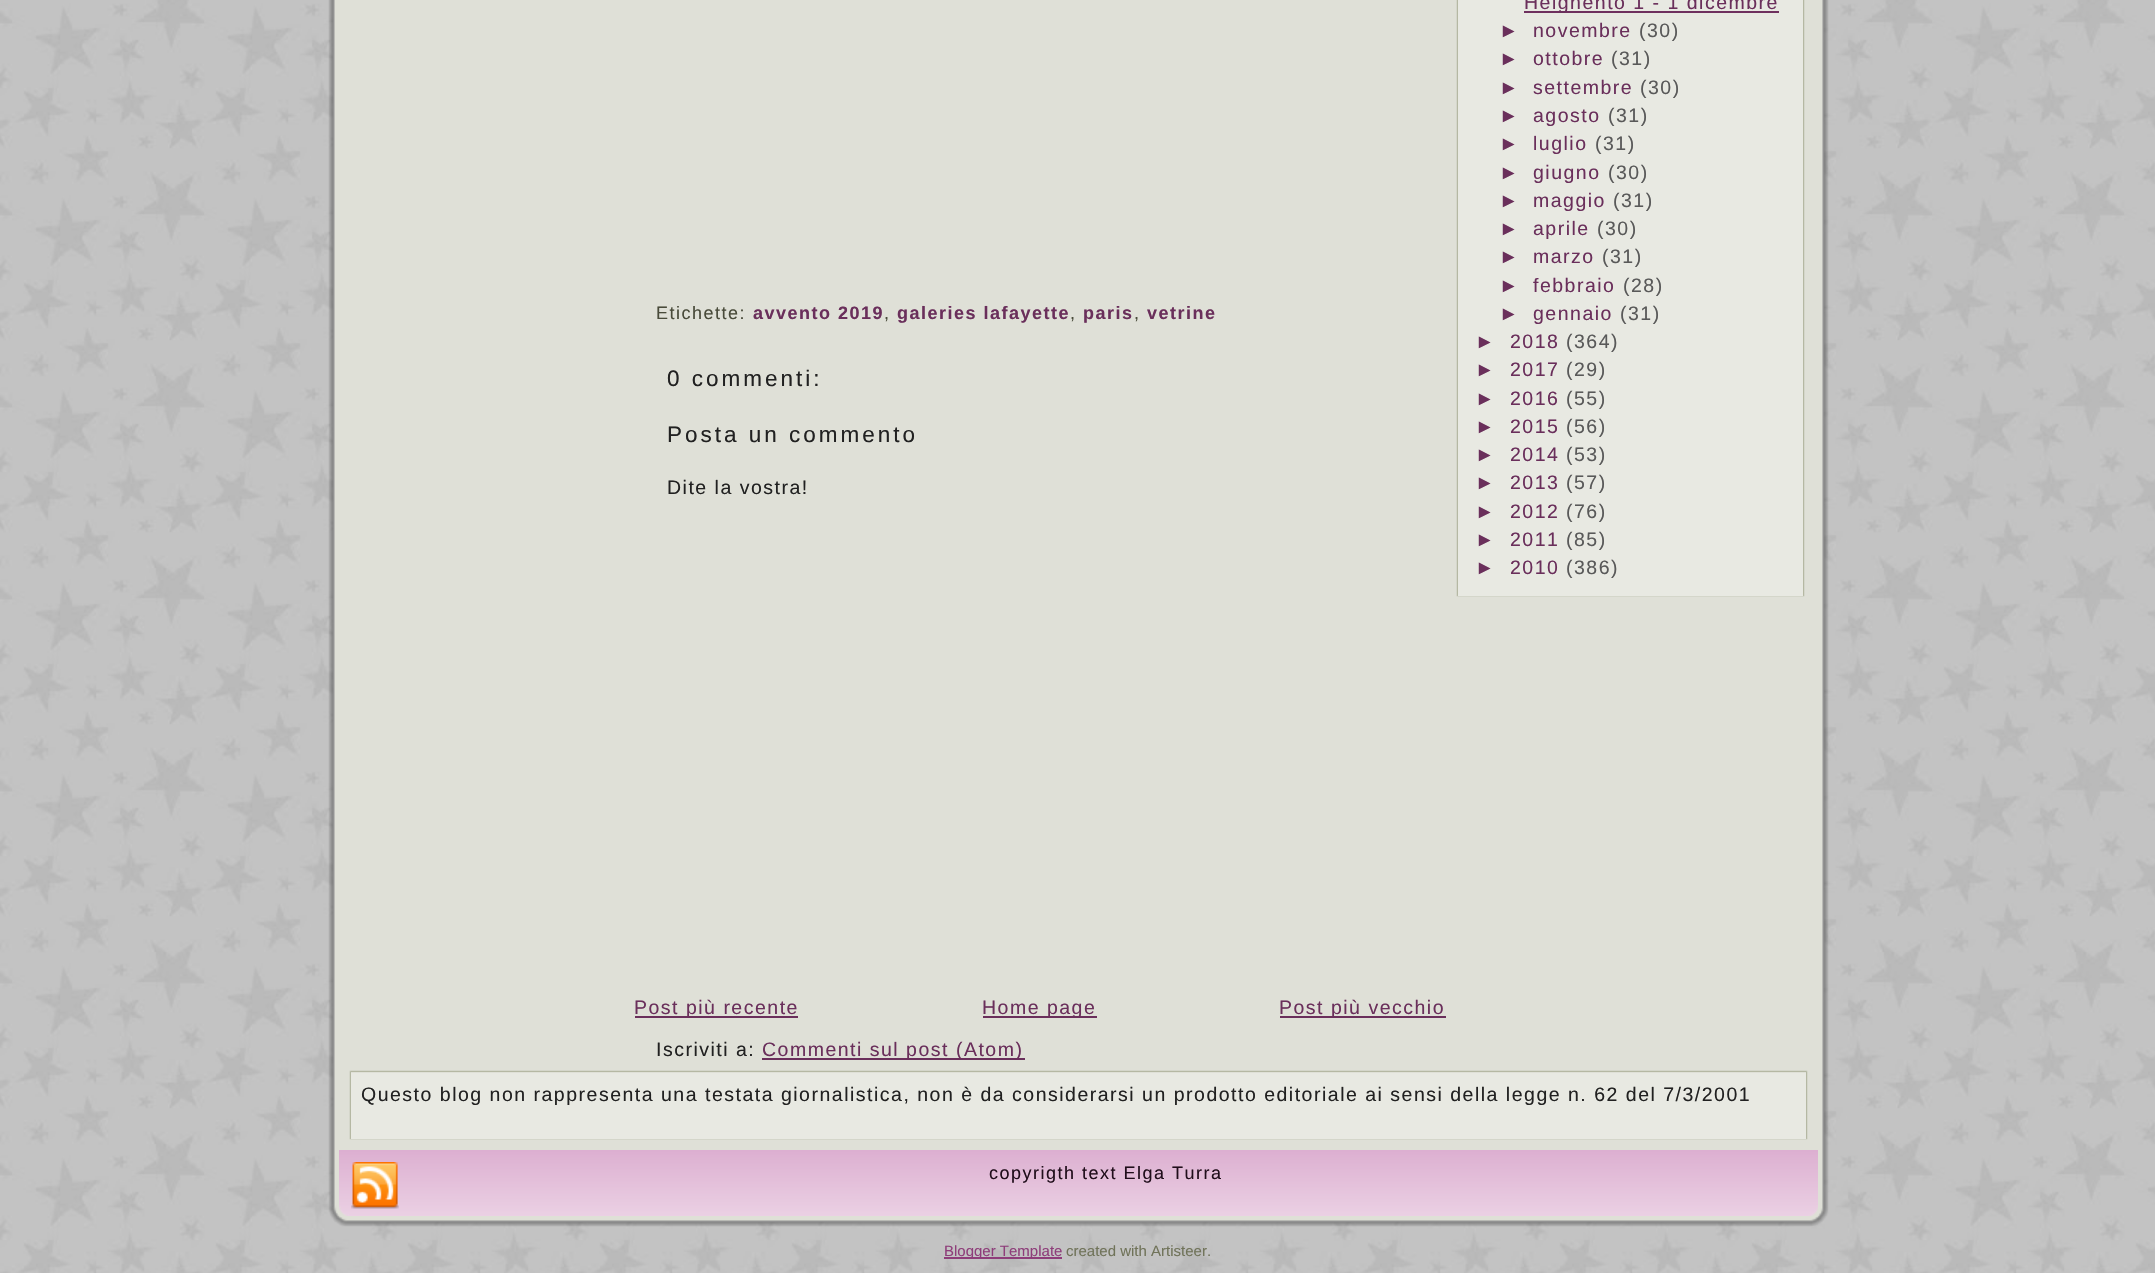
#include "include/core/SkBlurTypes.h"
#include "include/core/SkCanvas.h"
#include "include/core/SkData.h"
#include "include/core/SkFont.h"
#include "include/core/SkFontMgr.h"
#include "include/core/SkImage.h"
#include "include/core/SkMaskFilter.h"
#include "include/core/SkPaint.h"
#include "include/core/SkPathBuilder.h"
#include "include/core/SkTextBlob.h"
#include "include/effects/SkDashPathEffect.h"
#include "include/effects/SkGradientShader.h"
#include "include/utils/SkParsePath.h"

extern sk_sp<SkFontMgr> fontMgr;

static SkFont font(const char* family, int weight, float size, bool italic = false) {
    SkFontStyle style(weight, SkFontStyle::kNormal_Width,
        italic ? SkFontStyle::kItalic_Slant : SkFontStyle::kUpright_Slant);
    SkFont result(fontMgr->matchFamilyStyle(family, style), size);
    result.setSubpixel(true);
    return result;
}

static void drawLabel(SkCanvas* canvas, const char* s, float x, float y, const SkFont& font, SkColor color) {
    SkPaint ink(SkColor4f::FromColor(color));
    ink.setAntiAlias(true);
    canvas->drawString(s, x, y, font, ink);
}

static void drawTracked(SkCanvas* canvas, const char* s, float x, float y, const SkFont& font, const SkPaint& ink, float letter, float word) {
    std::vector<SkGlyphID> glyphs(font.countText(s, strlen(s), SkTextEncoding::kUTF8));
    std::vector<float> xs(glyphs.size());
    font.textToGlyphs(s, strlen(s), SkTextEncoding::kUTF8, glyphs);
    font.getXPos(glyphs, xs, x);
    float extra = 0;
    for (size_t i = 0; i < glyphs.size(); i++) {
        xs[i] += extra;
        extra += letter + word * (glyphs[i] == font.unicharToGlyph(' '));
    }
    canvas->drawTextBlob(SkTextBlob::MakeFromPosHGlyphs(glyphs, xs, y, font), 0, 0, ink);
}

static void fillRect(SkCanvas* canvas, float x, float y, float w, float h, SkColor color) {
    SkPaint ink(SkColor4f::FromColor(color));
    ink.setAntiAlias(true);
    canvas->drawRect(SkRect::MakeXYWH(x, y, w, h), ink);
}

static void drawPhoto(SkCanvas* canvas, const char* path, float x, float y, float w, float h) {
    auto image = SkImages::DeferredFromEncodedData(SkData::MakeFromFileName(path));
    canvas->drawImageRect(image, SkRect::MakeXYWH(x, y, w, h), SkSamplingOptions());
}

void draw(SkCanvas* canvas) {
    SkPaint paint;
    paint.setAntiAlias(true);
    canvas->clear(0xFFFFFFFF);
    drawPhoto(canvas, "assets/img1.png", 0, 0, 2155, 1273);
    drawPhoto(canvas, "assets/img2.png", 328, 0, 35, 1192);
    fillRect(canvas, 363, 0, 1431, 1150, 0xFFDFE0D7);
    SkFont font1 = font("Liberation Sans", 400, 18);
    paint.setColor(0xFF494B3A);
    drawTracked(canvas, "Etichette:", 656, 319, font1, paint, 1.5f, 0);
    SkFont font2 = font("Liberation Sans", 700, 18);
    paint.setColor(0xFF6A2F5B);
    drawTracked(canvas, "avvento 2019", 753, 319, font2, paint, 1.5f, 0);
    paint.setColor(0xFF494B3A);
    drawTracked(canvas, ",", 884, 319, font1, paint, 1.5f, 0);
    paint.setColor(0xFF6A2F5B);
    drawTracked(canvas, "galeries lafayette", 897, 319, font2, paint, 1.5f, 0);
    paint.setColor(0xFF494B3A);
    drawTracked(canvas, ",", 1070, 319, font1, paint, 1.5f, 0);
    paint.setColor(0xFF6A2F5B);
    drawTracked(canvas, "paris", 1083, 319, font2, paint, 1.5f, 0);
    paint.setColor(0xFF494B3A);
    drawTracked(canvas, ",", 1134, 319, font1, paint, 1.5f, 0);
    paint.setColor(0xFF6A2F5B);
    drawTracked(canvas, "vetrine", 1147, 319, font2, paint, 1.5f, 0);
    SkFont font3 = font("Liberation Sans", 400, 22.5f);
    paint.setColor(0xFF212121);
    drawTracked(canvas, "0 commenti:", 667, 386, font3, paint, 3, 0);
    drawTracked(canvas, "Posta un commento", 667, 442, font3, paint, 3, 0);
    SkFont font4 = font("Liberation Sans", 400, 19.5f);
    drawTracked(canvas, "Dite la vostra!", 667, 494, font4, paint, 1.5f, 0);
    fillRect(canvas, 635, 1016, 163, 2, 0xFF6A2F5B);
    paint.setColor(0xFF6A2F5B);
    drawTracked(canvas, "Post più recente", 634, 1014, font4, paint, 1.5f, 0);
    fillRect(canvas, 983, 1016, 114, 2, 0xFF6A2F5B);
    drawTracked(canvas, "Home page", 982, 1014, font4, paint, 1.5f, 0);
    fillRect(canvas, 1280, 1016, 166, 2, 0xFF6A2F5B);
    drawTracked(canvas, "Post più vecchio", 1279, 1014, font4, paint, 1.5f, 0);
    paint.setColor(0xFF212121);
    drawTracked(canvas, "Iscriviti a:", 656, 1056, font4, paint, 1.5f, 0);
    fillRect(canvas, 762, 1058, 263, 2, 0xFF6A2F5B);
    paint.setColor(0xFF6A2F5B);
    drawTracked(canvas, "Commenti sul post (Atom)", 762, 1056, font4, paint, 1.5f, 0);
    drawPhoto(canvas, "assets/img3.png", 1456, 0, 2, 595);
    drawPhoto(canvas, "assets/img16.png", 1794, 0, 35, 1192);
    fillRect(canvas, 1458, 0, 345, 596, 0xFFE8E9E2);
    fillRect(canvas, 1524, 11, 255, 2, 0xFF6E305E);
    drawTracked(canvas, "Helghento 1 - 1 dicembre", 1524, 9, font4, paint, 1.5f, 0);
    drawTracked(canvas, "►", 1499, 37, font4, paint, 1.5f, 0);
    drawTracked(canvas, "novembre", 1533, 37, font4, paint, 1.5f, 0);
    paint.setColor(0xFF595959);
    drawTracked(canvas, "(30)", 1639, 37, font4, paint, 1.5f, 0);
    paint.setColor(0xFF6A2F5B);
    drawTracked(canvas, "►", 1499, 65, font4, paint, 1.5f, 0);
    drawTracked(canvas, "ottobre", 1533, 65, font4, paint, 1.5f, 0);
    paint.setColor(0xFF595959);
    drawTracked(canvas, "(31)", 1611, 65, font4, paint, 1.5f, 0);
    paint.setColor(0xFF6A2F5B);
    drawTracked(canvas, "►", 1499, 94, font4, paint, 1.5f, 0);
    drawTracked(canvas, "settembre", 1533, 94, font4, paint, 1.5f, 0);
    paint.setColor(0xFF595959);
    drawTracked(canvas, "(30)", 1640, 94, font4, paint, 1.5f, 0);
    paint.setColor(0xFF6A2F5B);
    drawTracked(canvas, "►", 1499, 122, font4, paint, 1.5f, 0);
    drawTracked(canvas, "agosto", 1533, 122, font4, paint, 1.5f, 0);
    paint.setColor(0xFF595959);
    drawTracked(canvas, "(31)", 1608, 122, font4, paint, 1.5f, 0);
    paint.setColor(0xFF6A2F5B);
    drawTracked(canvas, "►", 1499, 150, font4, paint, 1.5f, 0);
    drawTracked(canvas, "luglio", 1533, 150, font4, paint, 1.5f, 0);
    paint.setColor(0xFF595959);
    drawTracked(canvas, "(31)", 1595, 150, font4, paint, 1.5f, 0);
    paint.setColor(0xFF6A2F5B);
    drawTracked(canvas, "►", 1499, 179, font4, paint, 1.5f, 0);
    drawTracked(canvas, "giugno", 1533, 179, font4, paint, 1.5f, 0);
    paint.setColor(0xFF595959);
    drawTracked(canvas, "(30)", 1608, 179, font4, paint, 1.5f, 0);
    paint.setColor(0xFF6A2F5B);
    drawTracked(canvas, "►", 1499, 207, font4, paint, 1.5f, 0);
    drawTracked(canvas, "maggio", 1533, 207, font4, paint, 1.5f, 0);
    paint.setColor(0xFF595959);
    drawTracked(canvas, "(31)", 1613, 207, font4, paint, 1.5f, 0);
    paint.setColor(0xFF6A2F5B);
    drawTracked(canvas, "►", 1499, 235, font4, paint, 1.5f, 0);
    drawTracked(canvas, "aprile", 1533, 235, font4, paint, 1.5f, 0);
    paint.setColor(0xFF595959);
    drawTracked(canvas, "(30)", 1597, 235, font4, paint, 1.5f, 0);
    paint.setColor(0xFF6A2F5B);
    drawTracked(canvas, "►", 1499, 263, font4, paint, 1.5f, 0);
    drawTracked(canvas, "marzo", 1533, 263, font4, paint, 1.5f, 0);
    paint.setColor(0xFF595959);
    drawTracked(canvas, "(31)", 1602, 263, font4, paint, 1.5f, 0);
    paint.setColor(0xFF6A2F5B);
    drawTracked(canvas, "►", 1499, 292, font4, paint, 1.5f, 0);
    drawTracked(canvas, "febbraio", 1533, 292, font4, paint, 1.5f, 0);
    paint.setColor(0xFF595959);
    drawTracked(canvas, "(28)", 1623, 292, font4, paint, 1.5f, 0);
    paint.setColor(0xFF6A2F5B);
    drawTracked(canvas, "►", 1499, 320, font4, paint, 1.5f, 0);
    drawTracked(canvas, "gennaio", 1533, 320, font4, paint, 1.5f, 0);
    paint.setColor(0xFF595959);
    drawTracked(canvas, "(31)", 1620, 320, font4, paint, 1.5f, 0);
    paint.setColor(0xFF6A2F5B);
    drawTracked(canvas, "►", 1475, 348, font4, paint, 1.5f, 0);
    drawTracked(canvas, "2018", 1510, 348, font4, paint, 1.5f, 0);
    paint.setColor(0xFF595959);
    drawTracked(canvas, "(364)", 1566, 348, font4, paint, 1.5f, 0);
    paint.setColor(0xFF6A2F5B);
    drawTracked(canvas, "►", 1475, 376, font4, paint, 1.5f, 0);
    drawTracked(canvas, "2017", 1510, 376, font4, paint, 1.5f, 0);
    paint.setColor(0xFF595959);
    drawTracked(canvas, "(29)", 1566, 376, font4, paint, 1.5f, 0);
    paint.setColor(0xFF6A2F5B);
    drawTracked(canvas, "►", 1475, 405, font4, paint, 1.5f, 0);
    drawTracked(canvas, "2016", 1510, 405, font4, paint, 1.5f, 0);
    paint.setColor(0xFF595959);
    drawTracked(canvas, "(55)", 1566, 405, font4, paint, 1.5f, 0);
    paint.setColor(0xFF6A2F5B);
    drawTracked(canvas, "►", 1475, 433, font4, paint, 1.5f, 0);
    drawTracked(canvas, "2015", 1510, 433, font4, paint, 1.5f, 0);
    paint.setColor(0xFF595959);
    drawTracked(canvas, "(56)", 1566, 433, font4, paint, 1.5f, 0);
    paint.setColor(0xFF6A2F5B);
    drawTracked(canvas, "►", 1475, 461, font4, paint, 1.5f, 0);
    drawTracked(canvas, "2014", 1510, 461, font4, paint, 1.5f, 0);
    paint.setColor(0xFF595959);
    drawTracked(canvas, "(53)", 1566, 461, font4, paint, 1.5f, 0);
    paint.setColor(0xFF6A2F5B);
    drawTracked(canvas, "►", 1475, 489, font4, paint, 1.5f, 0);
    drawTracked(canvas, "2013", 1510, 489, font4, paint, 1.5f, 0);
    paint.setColor(0xFF595959);
    drawTracked(canvas, "(57)", 1566, 489, font4, paint, 1.5f, 0);
    paint.setColor(0xFF6A2F5B);
    drawTracked(canvas, "►", 1475, 518, font4, paint, 1.5f, 0);
    drawTracked(canvas, "2012", 1510, 518, font4, paint, 1.5f, 0);
    paint.setColor(0xFF595959);
    drawTracked(canvas, "(76)", 1566, 518, font4, paint, 1.5f, 0);
    paint.setColor(0xFF6A2F5B);
    drawTracked(canvas, "►", 1475, 546, font4, paint, 1.5f, 0);
    drawTracked(canvas, "2011", 1510, 546, font4, paint, 1.5f, 0);
    paint.setColor(0xFF595959);
    drawTracked(canvas, "(85)", 1566, 546, font4, paint, 1.5f, 0);
    paint.setColor(0xFF6A2F5B);
    drawTracked(canvas, "►", 1475, 574, font4, paint, 1.5f, 0);
    drawTracked(canvas, "2010", 1510, 574, font4, paint, 1.5f, 0);
    paint.setColor(0xFF595959);
    drawTracked(canvas, "(386)", 1566, 574, font4, paint, 1.5f, 0);
    drawPhoto(canvas, "assets/img4.png", 1803, 0, 2, 595);
    drawPhoto(canvas, "assets/img5.png", 1456, 595, 2, 2);
    drawPhoto(canvas, "assets/img6.png", 1458, 596, 345, 1);
    drawPhoto(canvas, "assets/img7.png", 1803, 595, 2, 2);
    drawPhoto(canvas, "assets/img8.png", 349, 1070, 2, 2);
    drawPhoto(canvas, "assets/img9.png", 351, 1070, 1455, 2);
    drawPhoto(canvas, "assets/img10.png", 1806, 1070, 2, 2);
    drawPhoto(canvas, "assets/img11.png", 349, 1072, 2, 66);
    fillRect(canvas, 351, 1073, 1455, 66, 0xFFE8E9E2);
    drawPhoto(canvas, "assets/img12.png", 1806, 1072, 2, 66);
    paint.setColor(0xFF212121);
    drawTracked(canvas, "Questo blog non rappresenta una testata giornalistica, non è da considerarsi un prodotto editoriale ai sensi della legge n. 62 del 7/3/2001", 361, 1101, font4, paint, 1.5f, 0);
    drawPhoto(canvas, "assets/img5.png", 349, 1138, 2, 2);
    drawPhoto(canvas, "assets/img13.png", 351, 1139, 1455, 1);
    drawPhoto(canvas, "assets/img7.png", 1806, 1138, 2, 2);
    drawPhoto(canvas, "assets/img17.png", 328, 1192, 35, 35);
    drawPhoto(canvas, "assets/img19.png", 1794, 1192, 35, 35);
    drawPhoto(canvas, "assets/img14.png", 339, 1150, 1479, 66);
    drawPhoto(canvas, "assets/img15.png", 351, 1162, 48, 47);
    paint.setColor(0xFF200E1B);
    drawTracked(canvas, "copyrigth text Elga Turra", 989, 1179, font1, paint, 1.5f, 0);
    drawPhoto(canvas, "assets/img18.png", 363, 1216, 1431, 11);
    fillRect(canvas, 944, 1257, 118, 2, 0xFF8E3E7A);
    SkFont font5 = font("Liberation Sans", 400, 15);
    drawLabel(canvas, "Blogger Template", 944, 1256, font5, 0xFF8E3E7A);
    drawLabel(canvas, "created with Artisteer.", 1066, 1256, font5, 0xFF707359);
}
